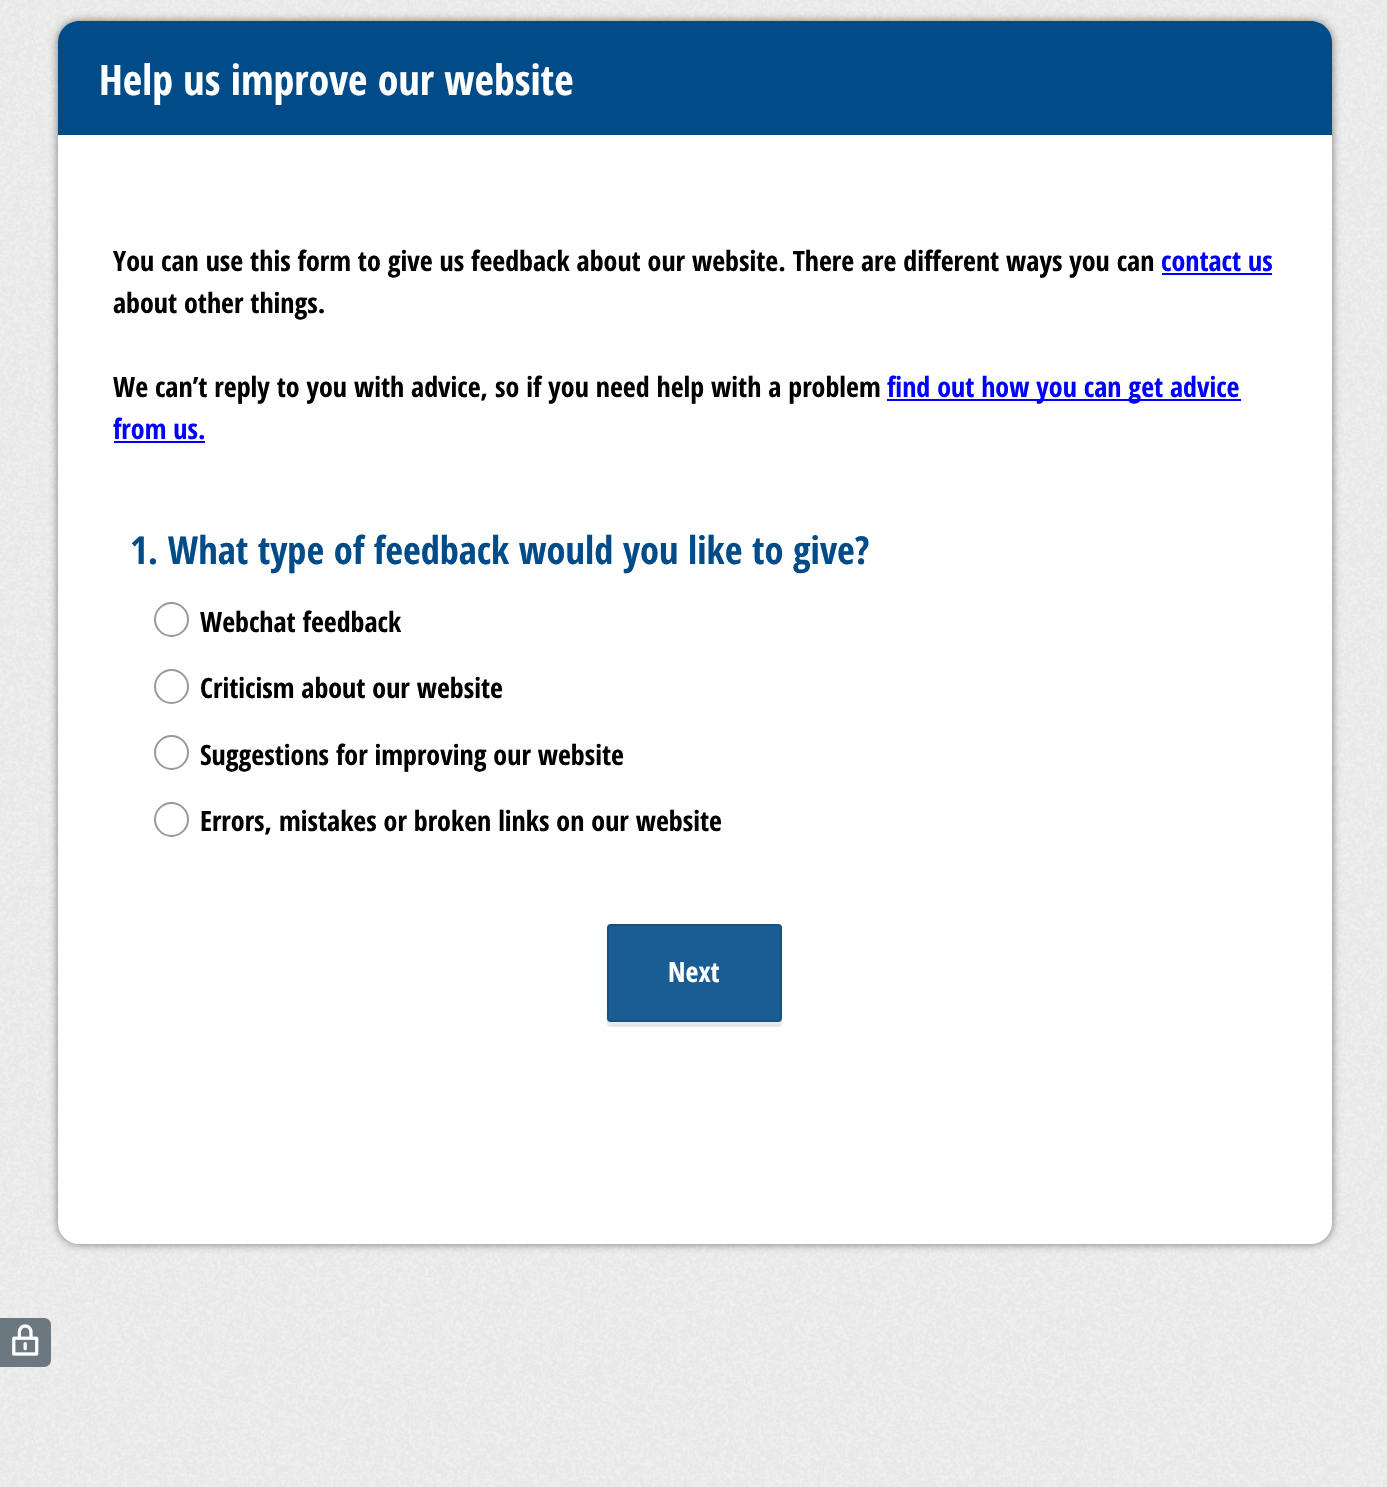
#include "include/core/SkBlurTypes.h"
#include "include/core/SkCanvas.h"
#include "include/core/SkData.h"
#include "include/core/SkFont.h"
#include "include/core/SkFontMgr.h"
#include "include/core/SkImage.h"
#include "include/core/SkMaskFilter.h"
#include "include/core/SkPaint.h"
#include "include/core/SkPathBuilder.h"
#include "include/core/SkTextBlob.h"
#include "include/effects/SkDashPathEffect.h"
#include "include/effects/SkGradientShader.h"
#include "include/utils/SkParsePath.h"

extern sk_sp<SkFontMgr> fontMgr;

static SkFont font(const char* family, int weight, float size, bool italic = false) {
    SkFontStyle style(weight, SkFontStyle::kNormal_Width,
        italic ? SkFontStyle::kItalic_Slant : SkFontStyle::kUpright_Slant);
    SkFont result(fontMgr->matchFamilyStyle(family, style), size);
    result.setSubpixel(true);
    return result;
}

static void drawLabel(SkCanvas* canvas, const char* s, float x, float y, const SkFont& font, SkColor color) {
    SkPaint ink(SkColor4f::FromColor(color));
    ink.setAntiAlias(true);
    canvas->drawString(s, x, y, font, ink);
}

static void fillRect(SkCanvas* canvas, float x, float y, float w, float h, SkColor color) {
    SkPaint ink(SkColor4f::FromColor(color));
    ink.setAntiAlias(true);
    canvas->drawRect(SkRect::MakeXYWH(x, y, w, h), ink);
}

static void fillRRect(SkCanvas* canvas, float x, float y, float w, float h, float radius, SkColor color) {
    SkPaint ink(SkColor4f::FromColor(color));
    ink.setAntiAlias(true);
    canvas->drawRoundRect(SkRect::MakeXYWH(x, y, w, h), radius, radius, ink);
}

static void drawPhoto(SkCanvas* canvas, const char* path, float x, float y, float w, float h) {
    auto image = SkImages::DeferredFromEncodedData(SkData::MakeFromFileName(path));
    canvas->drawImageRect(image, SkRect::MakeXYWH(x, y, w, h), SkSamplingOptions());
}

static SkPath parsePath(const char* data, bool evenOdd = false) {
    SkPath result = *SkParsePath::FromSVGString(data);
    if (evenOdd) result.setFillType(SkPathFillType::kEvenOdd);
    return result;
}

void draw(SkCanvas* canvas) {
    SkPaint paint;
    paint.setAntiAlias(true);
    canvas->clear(0xFFFFFFFF);
    drawPhoto(canvas, "assets/img1.png", 0, 0, 1387, 1487);
    paint.setColor(0x80000000);
    paint.setMaskFilter(SkMaskFilter::MakeBlur(kNormal_SkBlurStyle, 4.5f));
    canvas->drawRoundRect(SkRect::MakeXYWH(58, 21, 1274, 1223), 21, 21, paint);
    paint.setMaskFilter(nullptr);
    fillRRect(canvas, 58, 21, 1274, 1223, 21, 0xFFFFFFFF);
    paint.setColor(0xFF004B88);
    canvas->drawPath(parsePath("M79 21H1311C1322.5 21 1332 30.5 1332 42V135H58V42C58 30.5 67.5 21 79 21Z"), paint);
    SkFont font1 = font("Open Sans Condensed", 700, 42);
    drawLabel(canvas, "Help us improve our website", 99, 95, font1, 0xFFFFFFFF);
    SkFont font2 = font("Open Sans Condensed", 700, 28);
    drawLabel(canvas, "You can use this form to give us feedback about our website. There are different ways you can", 113, 271, font2, 0xFF000000);
    drawLabel(canvas, "contact us", 1161, 271, font2, 0xFF0000FF);
    fillRect(canvas, 1162, 273, 110, 2, 0xFF0000FF);
    drawLabel(canvas, "about other things.", 113, 313, font2, 0xFF000000);
    drawLabel(canvas, "We can’t reply to you with advice, so if you need help with a problem", 113, 397, font2, 0xFF000000);
    fillRect(canvas, 887, 399, 354, 2, 0xFF0000FF);
    drawLabel(canvas, "find out how you can get advice", 887, 397, font2, 0xFF0000FF);
    drawLabel(canvas, "from us.", 113, 439, font2, 0xFF0000FF);
    fillRect(canvas, 114, 441, 91, 2, 0xFF0000FF);
    SkFont font3 = font("Open Sans Condensed", 700, 38.5f);
    drawLabel(canvas, "1. What type of feedback would you like to give?", 130, 564, font3, 0xFF004B88);
    paint.setStroke(true);
    paint.setStrokeWidth(2);
    paint.setColor(0xFF999999);
    canvas->drawCircle(171.5f, 619.5f, 16.5f, paint);
    drawLabel(canvas, "Webchat feedback", 200, 632, font2, 0xFF000000);
    canvas->drawCircle(171.5f, 686.5f, 16.5f, paint);
    drawLabel(canvas, "Criticism about our website", 200, 698, font2, 0xFF000000);
    canvas->drawCircle(171.5f, 752.5f, 16.5f, paint);
    drawLabel(canvas, "Suggestions for improving our website", 200, 765, font2, 0xFF000000);
    canvas->drawCircle(171.5f, 819.5f, 16.5f, paint);
    drawLabel(canvas, "Errors, mistakes or broken links on our website", 200, 831, font2, 0xFF000000);
    paint.setStroke(false);
    paint.setColor(0xFFE8E8E8);
    canvas->drawPath(parsePath("M607 932V1008C607 1015 604 1027 611 1027H778C782 1027 782 1023 782 1020C781 1021 780 1022 779 1022H611C609 1022 607 1020 607 1018Z"), paint);
    fillRRect(canvas, 607, 924, 175, 98, 4, 0xFF1A5D94);
    paint.setStroke(true);
    paint.setColor(0x331A1A1A);
    canvas->drawRoundRect(SkRect::MakeXYWH(608, 925, 173, 96), 3, 3, paint);
    drawLabel(canvas, "Next", 668, 982, font2, 0xFFFFFFFF);
    paint.setStroke(false);
    paint.setColor(0xFF6B787F);
    canvas->drawPath(parsePath("M0 1318H44C48 1318 51 1321 51 1325V1360C51 1364 48 1367 44 1367H0Z"), paint);
    SkFont font4 = font("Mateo", 400, 32);
    drawLabel(canvas, "(", 9, 1354, font4, 0xFFFFFFFF);
}
